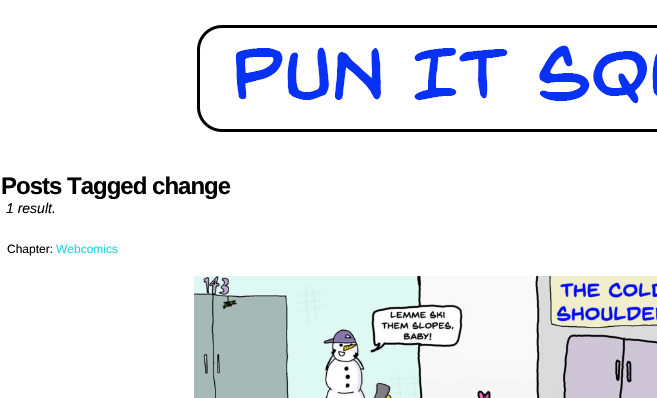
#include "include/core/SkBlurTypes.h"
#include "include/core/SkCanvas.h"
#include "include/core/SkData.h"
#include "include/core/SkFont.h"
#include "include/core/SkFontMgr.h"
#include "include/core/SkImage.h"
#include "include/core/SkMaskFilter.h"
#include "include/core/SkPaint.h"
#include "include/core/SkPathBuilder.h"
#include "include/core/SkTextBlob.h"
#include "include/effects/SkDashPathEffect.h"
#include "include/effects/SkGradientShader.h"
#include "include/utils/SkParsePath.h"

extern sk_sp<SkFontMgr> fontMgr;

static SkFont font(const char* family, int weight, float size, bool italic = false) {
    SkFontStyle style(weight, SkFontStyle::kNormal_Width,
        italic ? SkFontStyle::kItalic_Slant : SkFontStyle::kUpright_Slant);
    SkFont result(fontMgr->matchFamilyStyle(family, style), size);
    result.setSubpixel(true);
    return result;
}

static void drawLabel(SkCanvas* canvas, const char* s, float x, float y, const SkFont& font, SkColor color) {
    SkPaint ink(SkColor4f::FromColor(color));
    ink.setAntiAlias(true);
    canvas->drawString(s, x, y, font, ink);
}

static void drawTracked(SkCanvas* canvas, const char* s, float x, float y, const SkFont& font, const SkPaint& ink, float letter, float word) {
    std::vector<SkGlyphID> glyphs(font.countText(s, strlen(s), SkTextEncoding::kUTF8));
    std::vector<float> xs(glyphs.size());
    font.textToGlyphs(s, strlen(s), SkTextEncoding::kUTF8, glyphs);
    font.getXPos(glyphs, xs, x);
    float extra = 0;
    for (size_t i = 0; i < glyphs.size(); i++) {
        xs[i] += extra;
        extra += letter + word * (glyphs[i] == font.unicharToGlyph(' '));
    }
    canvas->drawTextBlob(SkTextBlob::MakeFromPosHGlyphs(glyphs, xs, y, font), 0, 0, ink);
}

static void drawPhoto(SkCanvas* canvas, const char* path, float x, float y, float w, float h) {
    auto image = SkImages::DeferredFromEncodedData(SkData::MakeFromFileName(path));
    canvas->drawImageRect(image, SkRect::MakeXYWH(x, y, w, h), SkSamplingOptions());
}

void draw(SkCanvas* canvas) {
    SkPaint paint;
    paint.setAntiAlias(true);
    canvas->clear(0xFFFFFFFF);
    drawPhoto(canvas, "assets/img1.png", 197, 25, 460, 107);
    SkFont font1 = font("Liberation Sans", 700, 24);
    paint.setColor(0xFF000000);
    drawTracked(canvas, "Posts Tagged change", 1, 194, font1, paint, -1, 0);
    SkFont font2 = font("Liberation Sans", 400, 14, true);
    drawLabel(canvas, "1 result.", 6, 213, font2, 0xFF000000);
    SkFont font3 = font("Liberation Sans", 400, 12);
    drawLabel(canvas, "Chapter:", 7, 253, font3, 0xFF000000);
    drawLabel(canvas, "Webcomics", 56, 253, font3, 0xFF21D3E0);
    drawPhoto(canvas, "assets/img2.png", 194, 276, 463, 122);
}
